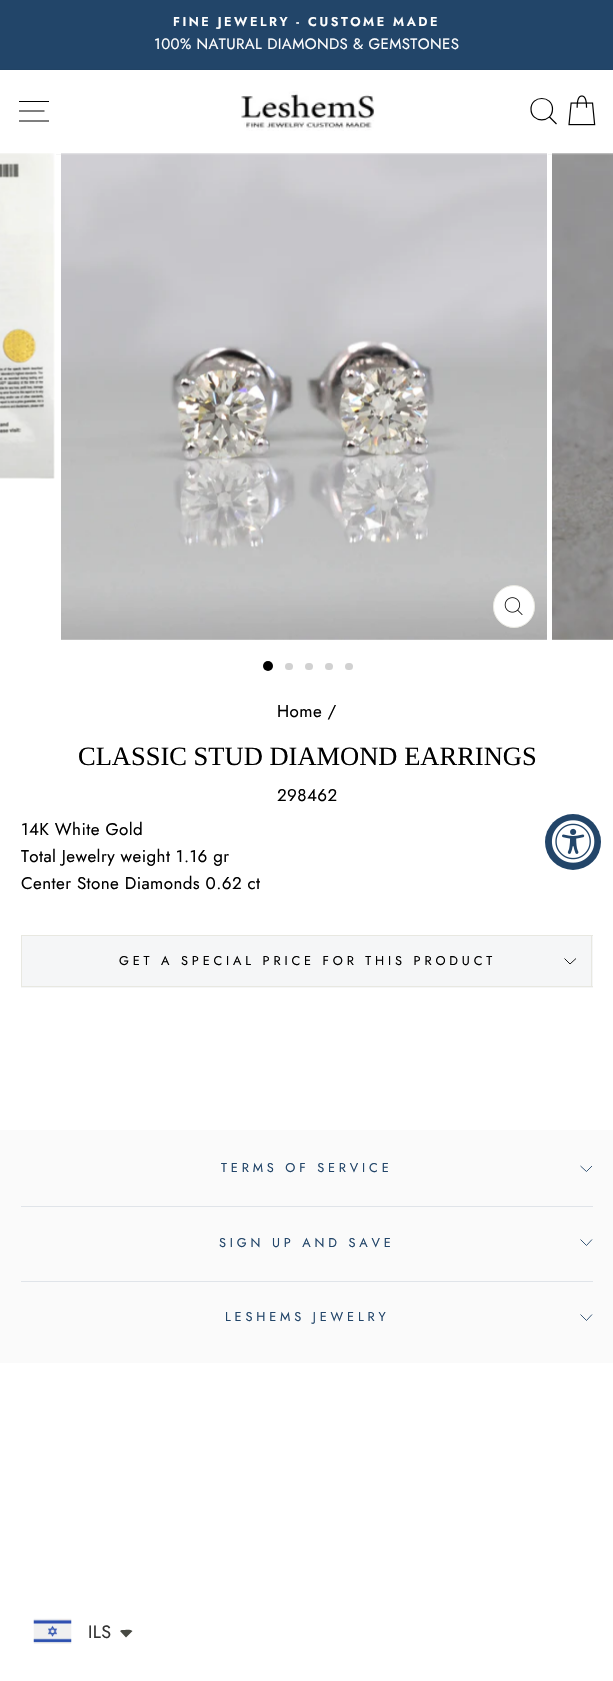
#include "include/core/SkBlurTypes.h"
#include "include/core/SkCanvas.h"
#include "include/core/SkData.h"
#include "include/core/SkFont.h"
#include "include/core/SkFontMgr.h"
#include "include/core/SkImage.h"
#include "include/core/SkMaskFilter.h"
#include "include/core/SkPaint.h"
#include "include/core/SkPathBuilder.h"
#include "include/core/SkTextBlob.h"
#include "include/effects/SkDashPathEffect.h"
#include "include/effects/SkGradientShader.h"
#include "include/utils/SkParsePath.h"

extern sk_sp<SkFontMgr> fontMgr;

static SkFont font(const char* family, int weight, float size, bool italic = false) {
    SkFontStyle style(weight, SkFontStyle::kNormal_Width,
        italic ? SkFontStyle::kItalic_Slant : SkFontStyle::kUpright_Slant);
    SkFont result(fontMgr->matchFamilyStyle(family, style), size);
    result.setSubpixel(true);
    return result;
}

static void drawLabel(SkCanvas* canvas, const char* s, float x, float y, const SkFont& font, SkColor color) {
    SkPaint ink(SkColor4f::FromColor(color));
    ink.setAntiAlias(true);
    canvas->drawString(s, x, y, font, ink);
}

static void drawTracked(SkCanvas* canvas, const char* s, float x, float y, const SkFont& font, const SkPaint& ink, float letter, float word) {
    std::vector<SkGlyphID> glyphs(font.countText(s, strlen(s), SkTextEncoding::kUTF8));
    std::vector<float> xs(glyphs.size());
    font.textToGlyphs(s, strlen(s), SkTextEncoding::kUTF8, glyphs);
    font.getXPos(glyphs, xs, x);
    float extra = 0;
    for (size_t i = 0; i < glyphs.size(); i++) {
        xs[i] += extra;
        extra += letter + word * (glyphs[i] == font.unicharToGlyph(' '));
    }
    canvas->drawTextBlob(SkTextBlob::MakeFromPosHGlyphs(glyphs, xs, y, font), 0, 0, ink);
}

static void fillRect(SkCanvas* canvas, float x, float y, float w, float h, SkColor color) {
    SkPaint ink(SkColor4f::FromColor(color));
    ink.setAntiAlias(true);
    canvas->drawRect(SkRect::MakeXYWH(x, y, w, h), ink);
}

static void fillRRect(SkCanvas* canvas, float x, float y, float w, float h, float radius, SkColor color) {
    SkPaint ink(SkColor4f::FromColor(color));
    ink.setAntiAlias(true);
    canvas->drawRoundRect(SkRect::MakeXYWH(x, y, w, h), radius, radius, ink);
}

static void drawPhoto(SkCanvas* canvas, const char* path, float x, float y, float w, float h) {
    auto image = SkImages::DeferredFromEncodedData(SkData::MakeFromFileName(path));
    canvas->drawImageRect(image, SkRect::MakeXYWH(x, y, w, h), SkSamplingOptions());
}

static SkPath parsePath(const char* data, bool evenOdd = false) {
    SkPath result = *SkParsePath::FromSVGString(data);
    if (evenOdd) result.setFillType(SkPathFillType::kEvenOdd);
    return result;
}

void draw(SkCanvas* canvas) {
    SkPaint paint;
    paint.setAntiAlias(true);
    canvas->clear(0xFFFFFFFF);
    fillRect(canvas, 0, 0, 613, 70, 0xFF224569);
    SkFont font1 = font("Jost", 600, 12.75f);
    paint.setColor(0xFFFFFFFF);
    drawTracked(canvas, "FINE JEWELRY - CUSTOME MADE", 173, 26, font1, paint, 2.55f, 0);
    SkFont font2 = font("Jost", 400, 15);
    drawTracked(canvas, "100% NATURAL DIAMONDS & GEMSTONES", 154, 49, font2, paint, 0.4f, 0);
    paint.setColor(0x33000000);
    paint.setMaskFilter(SkMaskFilter::MakeBlur(kNormal_SkBlurStyle, 0.5f));
    canvas->drawRect(SkRect::MakeXYWH(0, 70, 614, 84), paint);
    paint.setMaskFilter(nullptr);
    fillRect(canvas, 0, 70, 613, 84, 0xFFFFFFFF);
    paint.setStroke(true);
    paint.setStrokeWidth(1.2f);
    paint.setColor(0xFF000000);
    canvas->drawPath(parsePath("M19 101.5H49M19 111H44.5M19 121H49"), paint);
    drawPhoto(canvas, "assets/img1.png", 241, 91, 134, 40);
    canvas->drawPath(parsePath("M552.5 109C552.5 123.5 531 123.5 531 109C531 95 552.5 95 552.5 109ZM556.5 124L549.5 117"), paint);
    drawPhoto(canvas, "assets/img2.png", 568, 95, 28, 31);
    fillRect(canvas, 0, 154, 56, 1, 0xFFFFFFFF);
    drawPhoto(canvas, "assets/img3.png", 0, 153, 55, 326);
    fillRect(canvas, 61, 154, 487, 1, 0xFFFFFFFF);
    drawPhoto(canvas, "assets/img4.png", 61, 153, 486, 487);
    paint.setStroke(false);
    paint.setColor(0xFFFFFFFF);
    canvas->drawRoundRect(SkRect::MakeXYWH(493.5f, 585.5f, 41, 42), 20.5f, 20.5f, paint);
    paint.setStroke(true);
    paint.setStrokeWidth(1);
    paint.setColor(0xFFE8E8E1);
    canvas->drawRoundRect(SkRect::MakeXYWH(493.5f, 585.5f, 41, 42), 20.5f, 20.5f, paint);
    drawPhoto(canvas, "assets/img5.png", 504, 597, 19, 18);
    drawPhoto(canvas, "assets/img6.png", 552, 153, 61, 487);
    paint.setStroke(false);
    paint.setColor(0xFF000000);
    canvas->drawCircle(268, 666, 5, paint);
    fillRRect(canvas, 285, 663, 8, 7, 3.5f, 0xFFD1D1D1);
    fillRRect(canvas, 305, 663, 8, 7, 3.5f, 0xFFD1D1D1);
    fillRRect(canvas, 325, 663, 8, 7, 3.5f, 0xFFD1D1D1);
    fillRRect(canvas, 345, 663, 8, 7, 3.5f, 0xFFD1D1D1);
    SkFont font3 = font("Jost", 400, 17);
    drawTracked(canvas, "Home /", 277, 717, font3, paint, 0.4f, 0);
    SkFont font4 = font("Liberation Serif", 400, 26.5f);
    drawLabel(canvas, "CLASSIC STUD DIAMOND EARRINGS", 78, 765, font4, 0xFF000000);
    drawTracked(canvas, "298462", 277, 801, font3, paint, 0.4f, 0);
    drawTracked(canvas, "14K White Gold", 21, 835, font3, paint, 0.4f, 0);
    drawTracked(canvas, "Total Jewelry weight 1.16 gr", 21, 862, font3, paint, 0.4f, 0);
    drawTracked(canvas, "Center Stone Diamonds 0.62 ct", 21, 889, font3, paint, 0.4f, 0);
    fillRect(canvas, 21, 936, 572, 52, 0xFFF5F6F7);
    fillRect(canvas, 21, 986, 572, 1, 0xFFE8E8E1);
    fillRect(canvas, 21, 935, 572, 1, 0xFFE8E8E1);
    fillRect(canvas, 591, 935, 1, 51, 0xFFE8E8E1);
    fillRect(canvas, 21, 935, 1, 51, 0xFFE8E8E1);
    SkFont font5 = font("Jost", 400, 12.75f);
    drawTracked(canvas, "GET A SPECIAL PRICE FOR THIS PRODUCT", 119, 965, font5, paint, 3.85f, 0);
    paint.setStroke(true);
    paint.setStrokeWidth(0.9f);
    canvas->drawPath(parsePath("M564.5 958.5L570 964L576 958.5"), paint);
    fillRect(canvas, 0, 1130, 613, 233, 0xFFFAFAFA);
    paint.setStroke(false);
    paint.setColor(0xFF224569);
    drawTracked(canvas, "TERMS OF SERVICE", 221, 1172, font5, paint, 3.85f, 0);
    paint.setStroke(true);
    canvas->drawPath(parsePath("M580.5 1166L586.5 1171.5L592 1166"), paint);
    fillRect(canvas, 21, 1206, 572, 1, 0xFFE0E4E9);
    paint.setStroke(false);
    drawTracked(canvas, "SIGN UP AND SAVE", 219, 1247, font5, paint, 3.85f, 0);
    paint.setStroke(true);
    canvas->drawPath(parsePath("M580.5 1239.5L586.5 1245.5L592 1239.5"), paint);
    fillRect(canvas, 21, 1281, 572, 1, 0xFFE0E4E9);
    paint.setStroke(false);
    drawTracked(canvas, "LESHEMS JEWELRY", 225, 1321, font5, paint, 3.85f, 0);
    paint.setStroke(true);
    canvas->drawPath(parsePath("M580.5 1314.5L586.5 1320.5L592 1314.5"), paint);
    paint.setStroke(false);
    canvas->drawCircle(573, 842, 28, paint);
    drawPhoto(canvas, "assets/img7.png", 551, 820, 44, 43);
    drawPhoto(canvas, "assets/img8.png", 33, 1618, 39, 26);
    SkFont font6 = font("Jost", 400, 18);
    paint.setColor(0xFF333333);
    drawTracked(canvas, "ILS", 88, 1638, font6, paint, 0.4f, 0);
    paint.setColor(0xFF474942);
    canvas->drawPath(parsePath("M122.5 1630C125 1630 130.5 1629 132.5 1631L126 1637.5L120 1631C120.5 1630.5 121.5 1630 122.5 1630Z"), paint);
}
